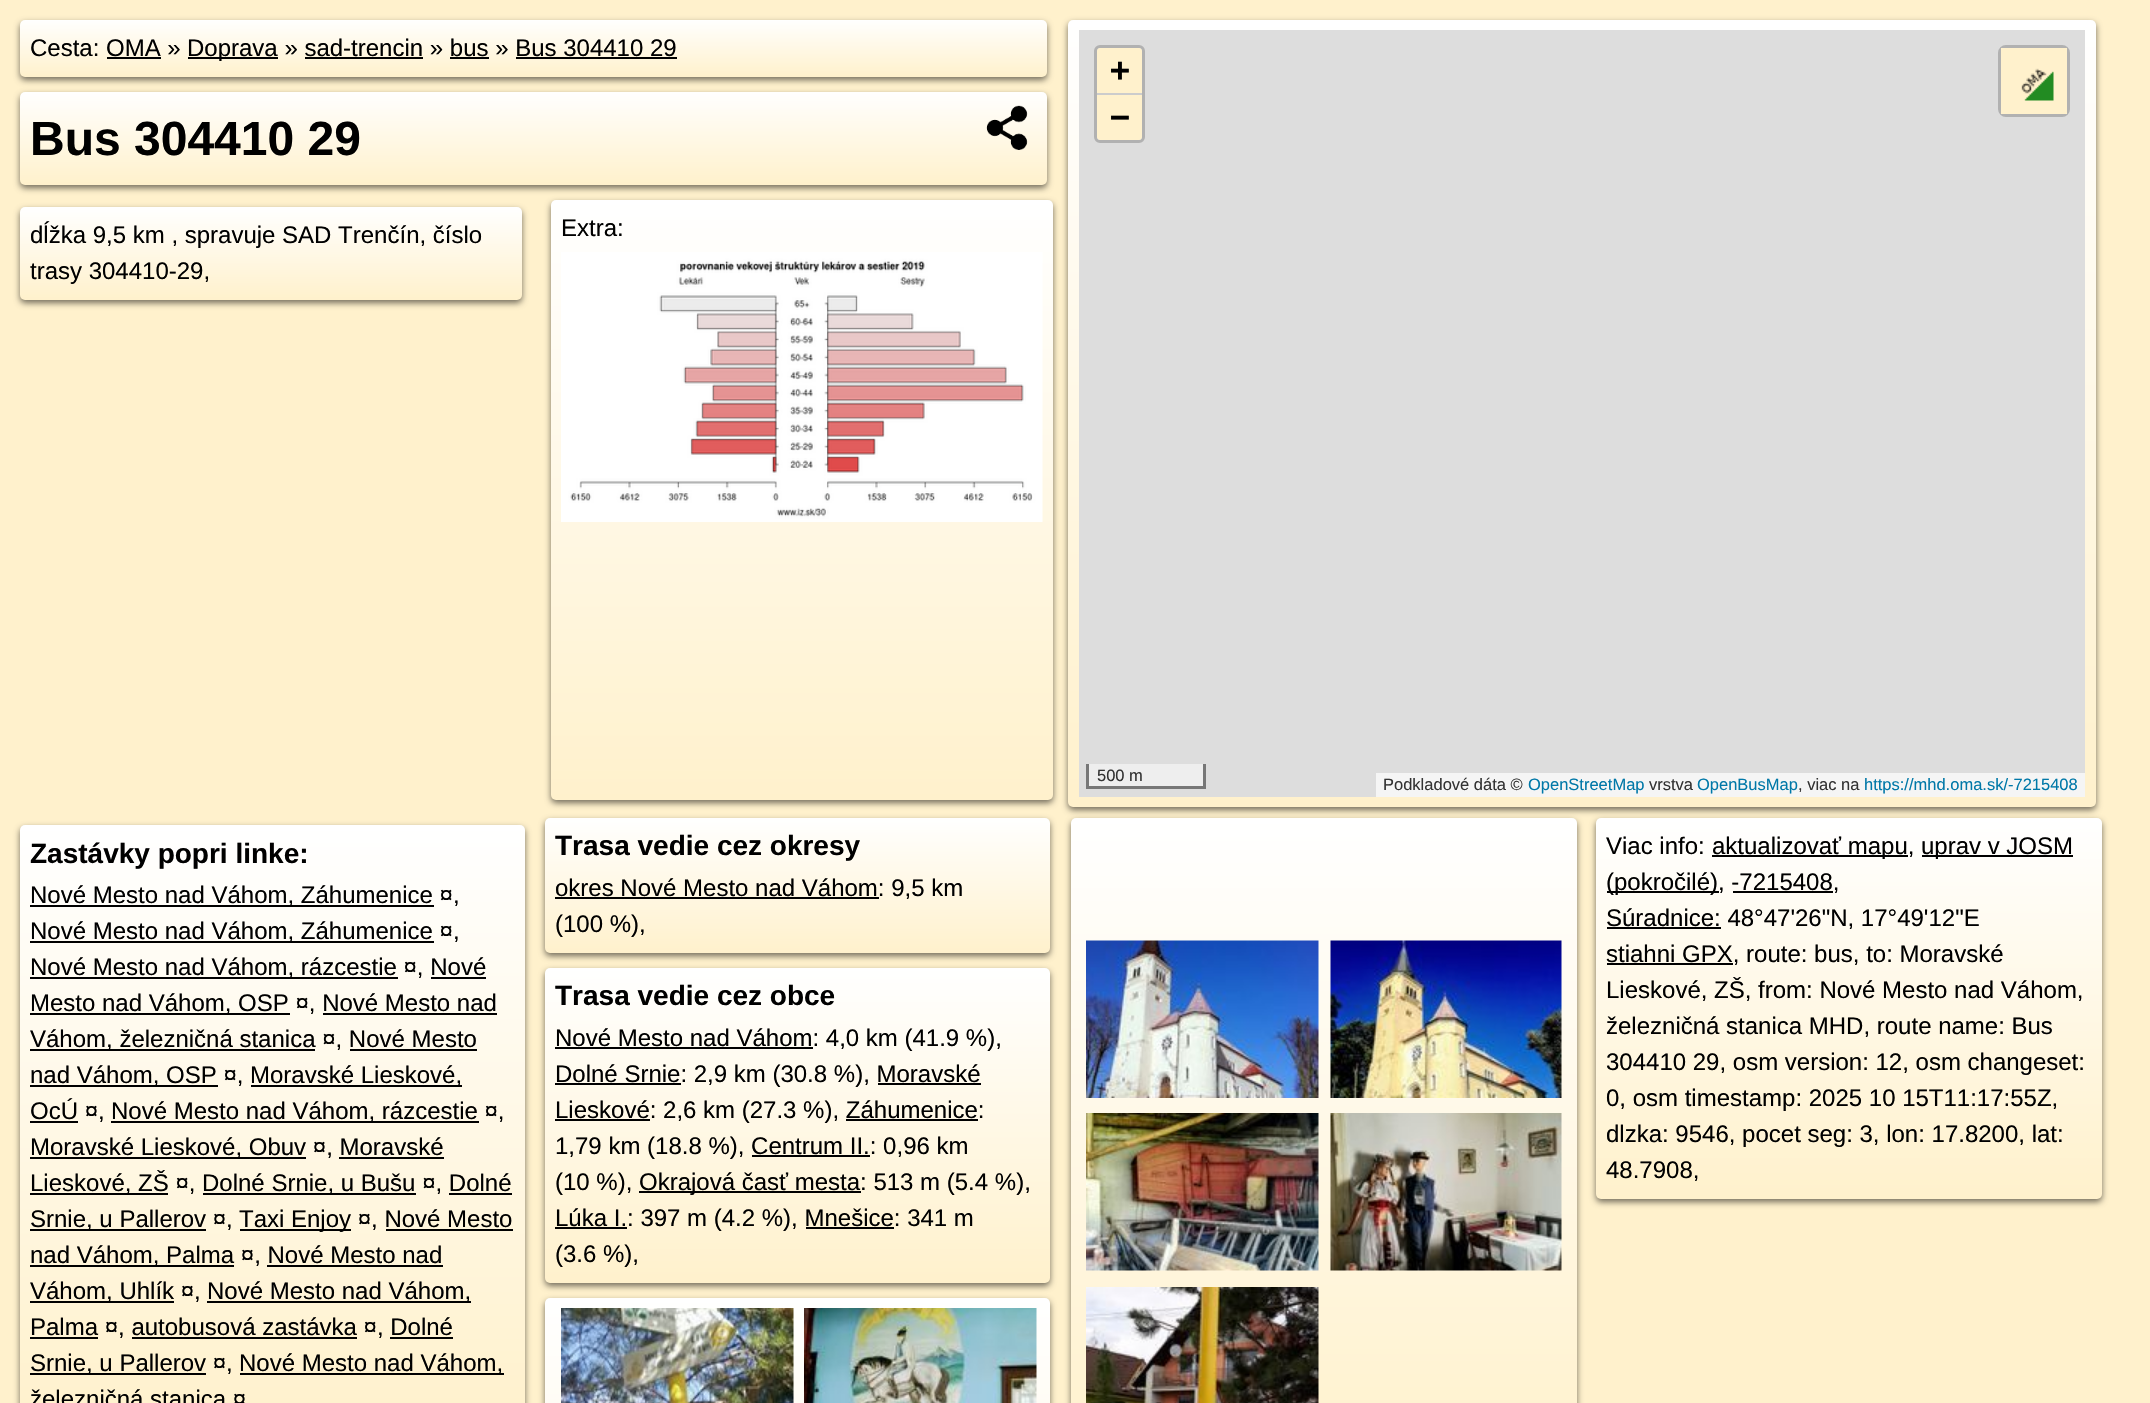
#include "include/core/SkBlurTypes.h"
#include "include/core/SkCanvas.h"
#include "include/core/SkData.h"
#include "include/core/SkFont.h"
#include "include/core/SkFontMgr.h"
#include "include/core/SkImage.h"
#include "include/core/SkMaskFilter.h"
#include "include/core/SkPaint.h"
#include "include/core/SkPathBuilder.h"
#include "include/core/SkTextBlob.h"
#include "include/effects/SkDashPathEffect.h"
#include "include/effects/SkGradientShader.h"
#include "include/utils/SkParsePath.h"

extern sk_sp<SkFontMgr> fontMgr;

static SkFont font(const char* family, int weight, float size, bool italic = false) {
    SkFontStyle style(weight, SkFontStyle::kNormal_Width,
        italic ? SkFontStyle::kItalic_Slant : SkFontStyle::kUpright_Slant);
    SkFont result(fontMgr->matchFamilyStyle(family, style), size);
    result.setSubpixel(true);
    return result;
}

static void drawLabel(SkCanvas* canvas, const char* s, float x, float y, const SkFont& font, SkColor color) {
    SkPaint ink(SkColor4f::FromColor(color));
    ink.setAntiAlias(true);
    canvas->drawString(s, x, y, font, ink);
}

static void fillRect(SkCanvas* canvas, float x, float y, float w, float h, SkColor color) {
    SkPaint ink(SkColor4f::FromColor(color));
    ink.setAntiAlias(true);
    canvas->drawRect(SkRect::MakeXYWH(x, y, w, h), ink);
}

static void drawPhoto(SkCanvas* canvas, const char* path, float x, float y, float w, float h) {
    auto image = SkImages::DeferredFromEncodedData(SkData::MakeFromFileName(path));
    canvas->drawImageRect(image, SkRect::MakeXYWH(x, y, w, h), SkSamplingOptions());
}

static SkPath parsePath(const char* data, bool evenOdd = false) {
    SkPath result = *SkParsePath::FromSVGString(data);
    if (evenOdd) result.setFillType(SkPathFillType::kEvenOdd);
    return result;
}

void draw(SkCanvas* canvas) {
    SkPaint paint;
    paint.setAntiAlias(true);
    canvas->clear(0xFFFFF1CC);
    paint.setColor(0x8C000000);
    paint.setMaskFilter(SkMaskFilter::MakeBlur(kNormal_SkBlurStyle, 3));
    canvas->drawRoundRect(SkRect::MakeXYWH(20, 23, 1027, 57), 5, 5, paint);
    paint.setMaskFilter(nullptr);
    {
        const SkColor colors[] = {0xFFFFFFFF, 0xFFFFF1CC};
        const float stops[] = {0, 1};
        const SkPoint ends[] = {{533, 19}, {533, 77}};
        paint.setShader(SkGradientShader::MakeLinear(ends, colors, stops, 2, SkTileMode::kClamp));
        paint.setAlpha(255);
    }
    canvas->drawRoundRect(SkRect::MakeXYWH(20, 20, 1027, 57), 5, 5, paint);
    SkFont font1 = font("Liberation Sans", 400, 24);
    drawLabel(canvas, "Cesta: OMA »", 30, 56, font1, 0xFF000000);
    fillRect(canvas, 188, 57, 90, 2, 0xFF000000);
    drawLabel(canvas, "Doprava » sad-trencin » bus » Bus 304410 29", 187, 56, font1, 0xFF000000);
    fillRect(canvas, 107, 57, 54, 2, 0xFF000000);
    fillRect(canvas, 305, 57, 118, 2, 0xFF000000);
    fillRect(canvas, 450, 57, 39, 2, 0xFF000000);
    fillRect(canvas, 516, 57, 161, 2, 0xFF000000);
    paint.setShader(nullptr);
    paint.setColor(0x8C000000);
    paint.setMaskFilter(SkMaskFilter::MakeBlur(kNormal_SkBlurStyle, 3));
    canvas->drawRoundRect(SkRect::MakeXYWH(20, 95, 1027, 93), 5, 5, paint);
    paint.setMaskFilter(nullptr);
    {
        const SkColor colors[] = {0xFFFFFFFF, 0xFFFFF1CC};
        const float stops[] = {0, 1};
        const SkPoint ends[] = {{533, 91}, {533, 185}};
        paint.setShader(SkGradientShader::MakeLinear(ends, colors, stops, 2, SkTileMode::kClamp));
        paint.setAlpha(255);
    }
    canvas->drawRoundRect(SkRect::MakeXYWH(20, 92, 1027, 93), 5, 5, paint);
    SkFont font2 = font("Liberation Sans", 700, 48);
    drawLabel(canvas, "Bus 304410 29", 30, 155, font2, 0xFF000000);
    drawPhoto(canvas, "assets/img1.png", 986, 105, 42, 45);
    paint.setShader(nullptr);
    paint.setColor(0x8C000000);
    paint.setMaskFilter(SkMaskFilter::MakeBlur(kNormal_SkBlurStyle, 3));
    canvas->drawRoundRect(SkRect::MakeXYWH(20, 210, 502, 93), 5, 5, paint);
    paint.setMaskFilter(nullptr);
    {
        const SkColor colors[] = {0xFFFFFFFF, 0xFFFFF1CC};
        const float stops[] = {0, 1};
        const SkPoint ends[] = {{271, 207}, {271, 300}};
        paint.setShader(SkGradientShader::MakeLinear(ends, colors, stops, 2, SkTileMode::kClamp));
        paint.setAlpha(255);
    }
    canvas->drawRoundRect(SkRect::MakeXYWH(20, 207, 502, 93), 5, 5, paint);
    drawLabel(canvas, "dĺžka 9,5 km , spravuje SAD Trenčín, číslo", 30, 243, font1, 0xFF000000);
    drawLabel(canvas, "trasy 304410-29,", 30, 279, font1, 0xFF000000);
    paint.setShader(nullptr);
    paint.setColor(0x8C000000);
    paint.setMaskFilter(SkMaskFilter::MakeBlur(kNormal_SkBlurStyle, 3));
    canvas->drawRoundRect(SkRect::MakeXYWH(551, 203, 502, 600), 5, 5, paint);
    paint.setMaskFilter(nullptr);
    {
        const SkColor colors[] = {0xFFFFFFFF, 0xFFFFF1CC};
        const float stops[] = {0, 1};
        const SkPoint ends[] = {{802, 199}, {802, 800}};
        paint.setShader(SkGradientShader::MakeLinear(ends, colors, stops, 2, SkTileMode::kClamp));
        paint.setAlpha(255);
    }
    canvas->drawRoundRect(SkRect::MakeXYWH(551, 200, 502, 600), 5, 5, paint);
    drawLabel(canvas, "Extra:", 561, 236, font1, 0xFF000000);
    drawPhoto(canvas, "assets/img2.png", 561, 252, 482, 270);
    paint.setShader(nullptr);
    paint.setColor(0x8C000000);
    paint.setMaskFilter(SkMaskFilter::MakeBlur(kNormal_SkBlurStyle, 3));
    canvas->drawRoundRect(SkRect::MakeXYWH(1068, 23, 1028, 787), 5, 5, paint);
    paint.setMaskFilter(nullptr);
    {
        const SkColor colors[] = {0xFFFFFFFF, 0xFFFFF1CC};
        const float stops[] = {0, 1};
        const SkPoint ends[] = {{1582, 19}, {1582, 807}};
        paint.setShader(SkGradientShader::MakeLinear(ends, colors, stops, 2, SkTileMode::kClamp));
        paint.setAlpha(255);
    }
    canvas->drawRoundRect(SkRect::MakeXYWH(1068, 20, 1028, 787), 5, 5, paint);
    fillRect(canvas, 1079, 30, 1006, 767, 0xFFDDDDDD);
    paint.setStroke(true);
    paint.setStrokeWidth(3);
    paint.setShader(nullptr);
    paint.setColor(0xFFB1B1B1);
    canvas->drawRoundRect(SkRect::MakeXYWH(1095.5f, 46.5f, 48, 95), 4.5f, 4.5f, paint);
    paint.setStroke(false);
    paint.setColor(0xFFFFF1CC);
    canvas->drawPath(parsePath("M1100 48H1139C1140.5 48 1142 49.5 1142 51V95H1097V51C1097 49.5 1098.5 48 1100 48Z"), paint);
    fillRect(canvas, 1097, 93, 45, 2, 0xFFCCCCCC);
    SkFont font3 = font("DejaVu Sans Mono", 700, 33);
    drawLabel(canvas, "+", 1110, 81, font3, 0xFF000000);
    canvas->drawPath(parsePath("M1097 95H1142V137C1142 138.5 1140.5 140 1139 140H1100C1098.5 140 1097 138.5 1097 137Z"), paint);
    drawLabel(canvas, "−", 1110, 128, font3, 0xFF000000);
    paint.setStroke(true);
    paint.setColor(0x33000000);
    canvas->drawRoundRect(SkRect::MakeXYWH(1999.5f, 46.5f, 69, 69), 6.5f, 6.5f, paint);
    fillRect(canvas, 2001, 48, 66, 66, 0xFFFFF1CC);
    drawPhoto(canvas, "assets/img3.png", 2021, 68, 33, 33);
    fillRect(canvas, 1089, 764, 114, 22, 0xFFEEEEEE);
    fillRect(canvas, 1203, 764, 3, 25, 0xFF777777);
    fillRect(canvas, 1086, 786, 120, 3, 0xFF777777);
    fillRect(canvas, 1086, 764, 3, 25, 0xFF777777);
    SkFont font4 = font("Liberation Sans", 400, 16.5f);
    drawLabel(canvas, "500 m", 1097, 781, font4, 0xFF333333);
    fillRect(canvas, 1376, 773, 709, 24, 0xFFF5F5F5);
    drawLabel(canvas, "Podkladové dáta ©", 1383, 790, font4, 0xFF333333);
    drawLabel(canvas, "OpenStreetMap", 1528, 790, font4, 0xFF0078A8);
    drawLabel(canvas, "vrstva", 1649, 790, font4, 0xFF333333);
    drawLabel(canvas, "OpenBusMap", 1697, 790, font4, 0xFF0078A8);
    drawLabel(canvas, ", viac na", 1798, 790, font4, 0xFF333333);
    drawLabel(canvas, "https://mhd.oma.sk/-7215408", 1864, 790, font4, 0xFF0078A8);
    paint.setStroke(false);
    paint.setColor(0x8C000000);
    paint.setMaskFilter(SkMaskFilter::MakeBlur(kNormal_SkBlurStyle, 3));
    canvas->drawRoundRect(SkRect::MakeXYWH(20, 828, 505, 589), 5, 5, paint);
    paint.setMaskFilter(nullptr);
    {
        const SkColor colors[] = {0xFFFFFFFF, 0xFFFFF1CC};
        const float stops[] = {0, 1};
        const SkPoint ends[] = {{272, 825}, {272, 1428}};
        paint.setShader(SkGradientShader::MakeLinear(ends, colors, stops, 2, SkTileMode::kClamp));
        paint.setAlpha(255);
    }
    canvas->drawRoundRect(SkRect::MakeXYWH(20, 825, 505, 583), 5, 5, paint);
    SkFont font5 = font("Liberation Sans", 700, 28);
    drawLabel(canvas, "Zastávky popri linke:", 30, 863, font5, 0xFF000000);
    fillRect(canvas, 30, 905, 404, 2, 0xFF000000);
    drawLabel(canvas, "Nové Mesto nad Váhom, Záhumenice ¤,", 30, 903, font1, 0xFF000000);
    fillRect(canvas, 30, 941, 404, 2, 0xFF000000);
    drawLabel(canvas, "Nové Mesto nad Váhom, Záhumenice ¤,", 30, 939, font1, 0xFF000000);
    fillRect(canvas, 30, 977, 368, 2, 0xFF000000);
    drawLabel(canvas, "Nové Mesto nad Váhom, rázcestie ¤, Nové", 30, 975, font1, 0xFF000000);
    fillRect(canvas, 30, 1013, 260, 2, 0xFF000000);
    drawLabel(canvas, "Mesto nad Váhom, OSP ¤, Nové Mesto nad", 30, 1011, font1, 0xFF000000);
    fillRect(canvas, 431, 977, 55, 2, 0xFF000000);
    fillRect(canvas, 30, 1049, 285, 2, 0xFF000000);
    drawLabel(canvas, "Váhom, železničná stanica ¤, Nové Mesto", 30, 1047, font1, 0xFF000000);
    fillRect(canvas, 323, 1013, 174, 2, 0xFF000000);
    fillRect(canvas, 30, 1085, 188, 2, 0xFF000000);
    drawLabel(canvas, "nad Váhom, OSP ¤,", 30, 1083, font1, 0xFF000000);
    fillRect(canvas, 350, 1049, 127, 2, 0xFF000000);
    fillRect(canvas, 251, 1085, 211, 2, 0xFF000000);
    drawLabel(canvas, "Moravské Lieskové,", 250, 1083, font1, 0xFF000000);
    fillRect(canvas, 30, 1121, 48, 2, 0xFF000000);
    drawLabel(canvas, "OcÚ ¤,", 30, 1119, font1, 0xFF000000);
    fillRect(canvas, 111, 1121, 368, 2, 0xFF000000);
    drawLabel(canvas, "Nové Mesto nad Váhom, rázcestie ¤,", 111, 1119, font1, 0xFF000000);
    fillRect(canvas, 30, 1157, 276, 2, 0xFF000000);
    drawLabel(canvas, "Moravské Lieskové, Obuv ¤, Moravské", 30, 1155, font1, 0xFF000000);
    fillRect(canvas, 30, 1193, 138, 2, 0xFF000000);
    drawLabel(canvas, "Lieskové, ZŠ ¤,", 30, 1191, font1, 0xFF000000);
    fillRect(canvas, 339, 1157, 105, 2, 0xFF000000);
    fillRect(canvas, 203, 1193, 213, 2, 0xFF000000);
    drawLabel(canvas, "Dolné Srnie, u Bušu ¤, Dolné", 202, 1191, font1, 0xFF000000);
    fillRect(canvas, 30, 1229, 176, 2, 0xFF000000);
    drawLabel(canvas, "Srnie, u Pallerov ¤,", 30, 1227, font1, 0xFF000000);
    fillRect(canvas, 449, 1193, 63, 2, 0xFF000000);
    fillRect(canvas, 240, 1229, 111, 2, 0xFF000000);
    drawLabel(canvas, "Taxi Enjoy ¤, Nové Mesto", 239, 1227, font1, 0xFF000000);
    fillRect(canvas, 30, 1265, 204, 2, 0xFF000000);
    drawLabel(canvas, "nad Váhom, Palma ¤, Nové Mesto nad", 30, 1263, font1, 0xFF000000);
    fillRect(canvas, 386, 1229, 127, 2, 0xFF000000);
    fillRect(canvas, 30, 1301, 144, 2, 0xFF000000);
    drawLabel(canvas, "Váhom, Uhlík ¤,", 30, 1299, font1, 0xFF000000);
    fillRect(canvas, 267, 1265, 176, 2, 0xFF000000);
    fillRect(canvas, 207, 1301, 264, 2, 0xFF000000);
    drawLabel(canvas, "Nové Mesto nad Váhom,", 207, 1299, font1, 0xFF000000);
    fillRect(canvas, 30, 1337, 68, 2, 0xFF000000);
    drawLabel(canvas, "Palma ¤, autobusová zastávka ¤, Dolné", 30, 1335, font1, 0xFF000000);
    fillRect(canvas, 132, 1337, 225, 2, 0xFF000000);
    fillRect(canvas, 30, 1373, 176, 2, 0xFF000000);
    drawLabel(canvas, "Srnie, u Pallerov ¤,", 30, 1371, font1, 0xFF000000);
    fillRect(canvas, 390, 1337, 63, 2, 0xFF000000);
    fillRect(canvas, 240, 1373, 264, 2, 0xFF000000);
    drawLabel(canvas, "Nové Mesto nad Váhom,", 239, 1371, font1, 0xFF000000);
    drawLabel(canvas, "železničná stanica ¤", 30, 1407, font1, 0xFF000000);
    paint.setShader(nullptr);
    paint.setColor(0x8C000000);
    paint.setMaskFilter(SkMaskFilter::MakeBlur(kNormal_SkBlurStyle, 3));
    canvas->drawRoundRect(SkRect::MakeXYWH(545, 821, 505, 135), 5, 5, paint);
    paint.setMaskFilter(nullptr);
    {
        const SkColor colors[] = {0xFFFFFFFF, 0xFFFFF1CC};
        const float stops[] = {0, 1};
        const SkPoint ends[] = {{797, 818}, {797, 953}};
        paint.setShader(SkGradientShader::MakeLinear(ends, colors, stops, 2, SkTileMode::kClamp));
        paint.setAlpha(255);
    }
    canvas->drawRoundRect(SkRect::MakeXYWH(545, 818, 505, 135), 5, 5, paint);
    drawLabel(canvas, "Trasa vedie cez okresy", 555, 855, font5, 0xFF000000);
    fillRect(canvas, 555, 897, 324, 2, 0xFF000000);
    drawLabel(canvas, "okres Nové Mesto nad Váhom: 9,5 km", 555, 896, font1, 0xFF000000);
    drawLabel(canvas, "(100 %),", 555, 932, font1, 0xFF000000);
    paint.setShader(nullptr);
    paint.setColor(0x8C000000);
    paint.setMaskFilter(SkMaskFilter::MakeBlur(kNormal_SkBlurStyle, 3));
    canvas->drawRoundRect(SkRect::MakeXYWH(1071, 821, 506, 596), 5, 5, paint);
    paint.setMaskFilter(nullptr);
    {
        const SkColor colors[] = {0xFFFFFFFF, 0xFFFFF1CC};
        const float stops[] = {0, 1};
        const SkPoint ends[] = {{1324, 818}, {1324, 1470}};
        paint.setShader(SkGradientShader::MakeLinear(ends, colors, stops, 2, SkTileMode::kClamp));
        paint.setAlpha(255);
    }
    canvas->drawRoundRect(SkRect::MakeXYWH(1071, 818, 506, 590), 5, 5, paint);
    drawPhoto(canvas, "assets/img4.png", 1086, 940, 233, 158);
    drawPhoto(canvas, "assets/img5.png", 1330, 940, 232, 158);
    drawPhoto(canvas, "assets/img6.png", 1086, 1113, 233, 158);
    drawPhoto(canvas, "assets/img7.png", 1330, 1113, 232, 158);
    drawPhoto(canvas, "assets/img8.png", 1086, 1287, 233, 116);
    paint.setShader(nullptr);
    paint.setColor(0x8C000000);
    paint.setMaskFilter(SkMaskFilter::MakeBlur(kNormal_SkBlurStyle, 3));
    canvas->drawRoundRect(SkRect::MakeXYWH(1596, 821, 506, 381), 5, 5, paint);
    paint.setMaskFilter(nullptr);
    {
        const SkColor colors[] = {0xFFFFFFFF, 0xFFFFF1CC};
        const float stops[] = {0, 1};
        const SkPoint ends[] = {{1849, 818}, {1849, 1199}};
        paint.setShader(SkGradientShader::MakeLinear(ends, colors, stops, 2, SkTileMode::kClamp));
        paint.setAlpha(255);
    }
    canvas->drawRoundRect(SkRect::MakeXYWH(1596, 818, 506, 381), 5, 5, paint);
    drawLabel(canvas, "Viac info:", 1606, 854, font1, 0xFF000000);
    fillRect(canvas, 1712, 855, 196, 2, 0xFF000000);
    drawLabel(canvas, "aktualizovať mapu,", 1712, 854, font1, 0xFF000000);
    fillRect(canvas, 1922, 855, 151, 2, 0xFF000000);
    drawLabel(canvas, "uprav v JOSM", 1921, 854, font1, 0xFF000000);
    fillRect(canvas, 1607, 891, 112, 2, 0xFF000000);
    drawLabel(canvas, "(pokročilé), -7215408,", 1606, 890, font1, 0xFF000000);
    fillRect(canvas, 1733, 891, 100, 2, 0xFF000000);
    fillRect(canvas, 1607, 927, 114, 2, 0xFF000000);
    drawLabel(canvas, "Súradnice: 48°47'26\"N, 17°49'12\"E", 1606, 926, font1, 0xFF000000);
    fillRect(canvas, 1607, 963, 126, 2, 0xFF000000);
    drawLabel(canvas, "stiahni GPX, route: bus, to: Moravské", 1606, 962, font1, 0xFF000000);
    drawLabel(canvas, "Lieskové, ZŠ, from: Nové Mesto nad Váhom,", 1606, 998, font1, 0xFF000000);
    drawLabel(canvas, "železničná stanica MHD, route name: Bus", 1606, 1034, font1, 0xFF000000);
    drawLabel(canvas, "304410 29, osm version: 12, osm changeset:", 1606, 1070, font1, 0xFF000000);
    drawLabel(canvas, "0, osm timestamp: 2025 10 15T11:17:55Z,", 1606, 1106, font1, 0xFF000000);
    drawLabel(canvas, "dlzka: 9546, pocet seg: 3, lon: 17.8200, lat:", 1606, 1142, font1, 0xFF000000);
    drawLabel(canvas, "48.7908,", 1606, 1178, font1, 0xFF000000);
    paint.setShader(nullptr);
    paint.setColor(0x8C000000);
    paint.setMaskFilter(SkMaskFilter::MakeBlur(kNormal_SkBlurStyle, 3));
    canvas->drawRoundRect(SkRect::MakeXYWH(545, 971, 505, 315), 5, 5, paint);
    paint.setMaskFilter(nullptr);
    {
        const SkColor colors[] = {0xFFFFFFFF, 0xFFFFF1CC};
        const float stops[] = {0, 1};
        const SkPoint ends[] = {{797, 968}, {797, 1283}};
        paint.setShader(SkGradientShader::MakeLinear(ends, colors, stops, 2, SkTileMode::kClamp));
        paint.setAlpha(255);
    }
    canvas->drawRoundRect(SkRect::MakeXYWH(545, 968, 505, 315), 5, 5, paint);
    drawLabel(canvas, "Trasa vedie cez obce", 555, 1005, font5, 0xFF000000);
    fillRect(canvas, 555, 1047, 258, 2, 0xFF000000);
    drawLabel(canvas, "Nové Mesto nad Váhom: 4,0 km (41.9 %),", 555, 1046, font1, 0xFF000000);
    fillRect(canvas, 555, 1083, 126, 2, 0xFF000000);
    drawLabel(canvas, "Dolné Srnie: 2,9 km (30.8 %), Moravské", 555, 1082, font1, 0xFF000000);
    fillRect(canvas, 555, 1119, 95, 2, 0xFF000000);
    drawLabel(canvas, "Lieskové: 2,6 km (27.3 %), Záhumenice:", 555, 1118, font1, 0xFF000000);
    fillRect(canvas, 878, 1083, 103, 2, 0xFF000000);
    fillRect(canvas, 846, 1119, 132, 2, 0xFF000000);
    drawLabel(canvas, "1,79 km (18.8 %), Centrum II.: 0,96 km", 555, 1154, font1, 0xFF000000);
    fillRect(canvas, 752, 1155, 118, 2, 0xFF000000);
    drawLabel(canvas, "(10 %),", 555, 1190, font1, 0xFF000000);
    fillRect(canvas, 639, 1191, 222, 2, 0xFF000000);
    drawLabel(canvas, "Okrajová časť mesta: 513 m (5.4 %),", 639, 1190, font1, 0xFF000000);
    fillRect(canvas, 555, 1227, 72, 2, 0xFF000000);
    drawLabel(canvas, "Lúka I.: 397 m (4.2 %), Mnešice: 341 m", 555, 1226, font1, 0xFF000000);
    fillRect(canvas, 806, 1227, 88, 2, 0xFF000000);
    drawLabel(canvas, "(3.6 %),", 555, 1262, font1, 0xFF000000);
    paint.setShader(nullptr);
    paint.setColor(0x8C000000);
    paint.setMaskFilter(SkMaskFilter::MakeBlur(kNormal_SkBlurStyle, 3));
    canvas->drawRoundRect(SkRect::MakeXYWH(545, 1301, 505, 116), 5, 5, paint);
    paint.setMaskFilter(nullptr);
    {
        const SkColor colors[] = {0xFFFFFFFF, 0xFFFFF1CC};
        const float stops[] = {0, 1};
        const SkPoint ends[] = {{797, 1298}, {797, 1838}};
        paint.setShader(SkGradientShader::MakeLinear(ends, colors, stops, 2, SkTileMode::kClamp));
        paint.setAlpha(255);
    }
    canvas->drawRoundRect(SkRect::MakeXYWH(545, 1298, 505, 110), 5, 5, paint);
    drawPhoto(canvas, "assets/img9.png", 561, 1308, 233, 95);
    drawPhoto(canvas, "assets/img10.png", 804, 1308, 233, 95);
}
